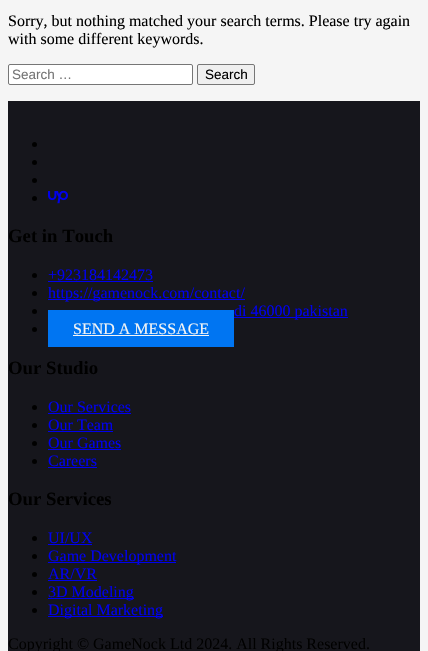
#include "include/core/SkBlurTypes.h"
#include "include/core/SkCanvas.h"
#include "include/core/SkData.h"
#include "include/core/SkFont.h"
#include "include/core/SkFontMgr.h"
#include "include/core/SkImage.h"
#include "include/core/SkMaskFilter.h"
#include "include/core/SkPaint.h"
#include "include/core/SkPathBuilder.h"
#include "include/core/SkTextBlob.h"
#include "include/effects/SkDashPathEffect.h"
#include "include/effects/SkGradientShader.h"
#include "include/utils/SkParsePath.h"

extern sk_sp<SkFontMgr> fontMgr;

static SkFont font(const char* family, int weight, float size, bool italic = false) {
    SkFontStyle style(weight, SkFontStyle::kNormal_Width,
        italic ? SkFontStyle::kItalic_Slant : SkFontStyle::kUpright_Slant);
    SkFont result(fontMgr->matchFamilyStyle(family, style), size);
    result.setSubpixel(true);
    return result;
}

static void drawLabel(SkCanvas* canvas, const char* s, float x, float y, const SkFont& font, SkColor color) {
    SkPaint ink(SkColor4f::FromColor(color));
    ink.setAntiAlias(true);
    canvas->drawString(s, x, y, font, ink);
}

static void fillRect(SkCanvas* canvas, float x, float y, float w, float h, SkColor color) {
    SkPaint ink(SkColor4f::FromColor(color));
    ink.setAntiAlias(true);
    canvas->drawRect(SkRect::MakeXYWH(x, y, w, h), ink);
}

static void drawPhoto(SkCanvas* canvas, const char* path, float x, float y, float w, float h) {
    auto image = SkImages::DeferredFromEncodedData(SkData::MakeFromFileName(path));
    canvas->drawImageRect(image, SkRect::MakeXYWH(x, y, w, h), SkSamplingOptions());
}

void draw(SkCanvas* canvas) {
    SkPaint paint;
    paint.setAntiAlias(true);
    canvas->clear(0xFFF5F5F5);
    SkFont font1 = font("Liberation Serif", 400, 16);
    drawLabel(canvas, "Sorry, but nothing matched your search terms. Please try again", 8, 26, font1, 0xFF000000);
    drawLabel(canvas, "with some different keywords.", 8, 44, font1, 0xFF000000);
    paint.setColor(0xFFFFFFFF);
    canvas->drawRoundRect(SkRect::MakeXYWH(8.5f, 64.5f, 184, 20), 1.5f, 1.5f, paint);
    paint.setStroke(true);
    paint.setStrokeWidth(1);
    paint.setColor(0xFF767676);
    canvas->drawRoundRect(SkRect::MakeXYWH(8.5f, 64.5f, 184, 20), 1.5f, 1.5f, paint);
    SkFont font2 = font("Liberation Sans", 400, 13.5f);
    drawLabel(canvas, "Search …", 12, 79, font2, 0xFF757575);
    paint.setStroke(false);
    paint.setColor(0xFFEFEFEF);
    canvas->drawRoundRect(SkRect::MakeXYWH(197.5f, 64.5f, 57, 20), 1.5f, 1.5f, paint);
    paint.setStroke(true);
    paint.setColor(0xFF767676);
    canvas->drawRoundRect(SkRect::MakeXYWH(197.5f, 64.5f, 57, 20), 1.5f, 1.5f, paint);
    drawLabel(canvas, "Search", 205, 79, font2, 0xFF000000);
    fillRect(canvas, 8, 101, 412, 550, 0xFF16161C);
    paint.setStroke(false);
    paint.setColor(0xFF000000);
    canvas->drawCircle(34.5f, 144.5f, 2.5f, paint);
    canvas->drawCircle(34.5f, 162.5f, 2.5f, paint);
    canvas->drawCircle(34.5f, 180.5f, 2.5f, paint);
    canvas->drawCircle(34.5f, 198.5f, 2.5f, paint);
    drawPhoto(canvas, "assets/img1.png", 48, 190, 20, 14);
    SkFont font3 = font("Liberation Serif", 700, 18.75f);
    drawLabel(canvas, "Get in Touch", 8, 242, font3, 0xFF000000);
    canvas->drawCircle(34.5f, 275.5f, 2.5f, paint);
    drawLabel(canvas, "+923184142473", 48, 280, font1, 0xFF0000EE);
    fillRect(canvas, 48, 281, 105, 1, 0xFF0000EE);
    canvas->drawCircle(34.5f, 293.5f, 2.5f, paint);
    fillRect(canvas, 48, 299, 197, 1, 0xFF0000EE);
    drawLabel(canvas, "https://gamenock.com/contact/", 48, 298, font1, 0xFF0000EE);
    canvas->drawCircle(34.5f, 311.5f, 2.5f, paint);
    fillRect(canvas, 234, 317, 114, 1, 0xFF0000EE);
    drawLabel(canvas, "di 46000 pakistan", 234, 316, font1, 0xFF0000EE);
    canvas->drawCircle(34.5f, 329.5f, 2.5f, paint);
    fillRect(canvas, 48, 310, 186, 37, 0xFF0075F2);
    drawLabel(canvas, "SEND A MESSAGE", 73, 334, font1, 0xFFF5F5F5);
    fillRect(canvas, 73, 335, 136, 1, 0xFFF5F5F5);
    drawLabel(canvas, "Our Studio", 8, 374, font3, 0xFF000000);
    canvas->drawCircle(34.5f, 407.5f, 2.5f, paint);
    drawLabel(canvas, "Our Services", 48, 412, font1, 0xFF0000EE);
    fillRect(canvas, 48, 413, 83, 1, 0xFF0000EE);
    canvas->drawCircle(34.5f, 425.5f, 2.5f, paint);
    drawLabel(canvas, "Our Team", 48, 430, font1, 0xFF0000EE);
    fillRect(canvas, 48, 431, 65, 1, 0xFF0000EE);
    canvas->drawCircle(34.5f, 443.5f, 2.5f, paint);
    drawLabel(canvas, "Our Games", 48, 448, font1, 0xFF0000EE);
    fillRect(canvas, 48, 449, 73, 1, 0xFF0000EE);
    canvas->drawCircle(34.5f, 461.5f, 2.5f, paint);
    drawLabel(canvas, "Careers", 48, 466, font1, 0xFF0000EE);
    fillRect(canvas, 48, 467, 49, 1, 0xFF0000EE);
    drawLabel(canvas, "Our Services", 8, 505, font3, 0xFF000000);
    canvas->drawCircle(34.5f, 538.5f, 2.5f, paint);
    drawLabel(canvas, "UI/UX", 48, 543, font1, 0xFF0000EE);
    fillRect(canvas, 48, 544, 44, 1, 0xFF0000EE);
    canvas->drawCircle(34.5f, 556.5f, 2.5f, paint);
    fillRect(canvas, 48, 562, 128, 1, 0xFF0000EE);
    drawLabel(canvas, "Game Development", 48, 561, font1, 0xFF0000EE);
    canvas->drawCircle(34.5f, 574.5f, 2.5f, paint);
    drawLabel(canvas, "AR/VR", 48, 579, font1, 0xFF0000EE);
    fillRect(canvas, 48, 580, 49, 1, 0xFF0000EE);
    canvas->drawCircle(34.5f, 592.5f, 2.5f, paint);
    fillRect(canvas, 48, 598, 86, 1, 0xFF0000EE);
    drawLabel(canvas, "3D Modeling", 48, 597, font1, 0xFF0000EE);
    canvas->drawCircle(34.5f, 610.5f, 2.5f, paint);
    fillRect(canvas, 48, 616, 115, 1, 0xFF0000EE);
    drawLabel(canvas, "Digital Marketing", 48, 615, font1, 0xFF0000EE);
    drawLabel(canvas, "Copyright © GameNock Ltd 2024. All Rights Reserved.", 8, 649, font1, 0xFF000000);
}
